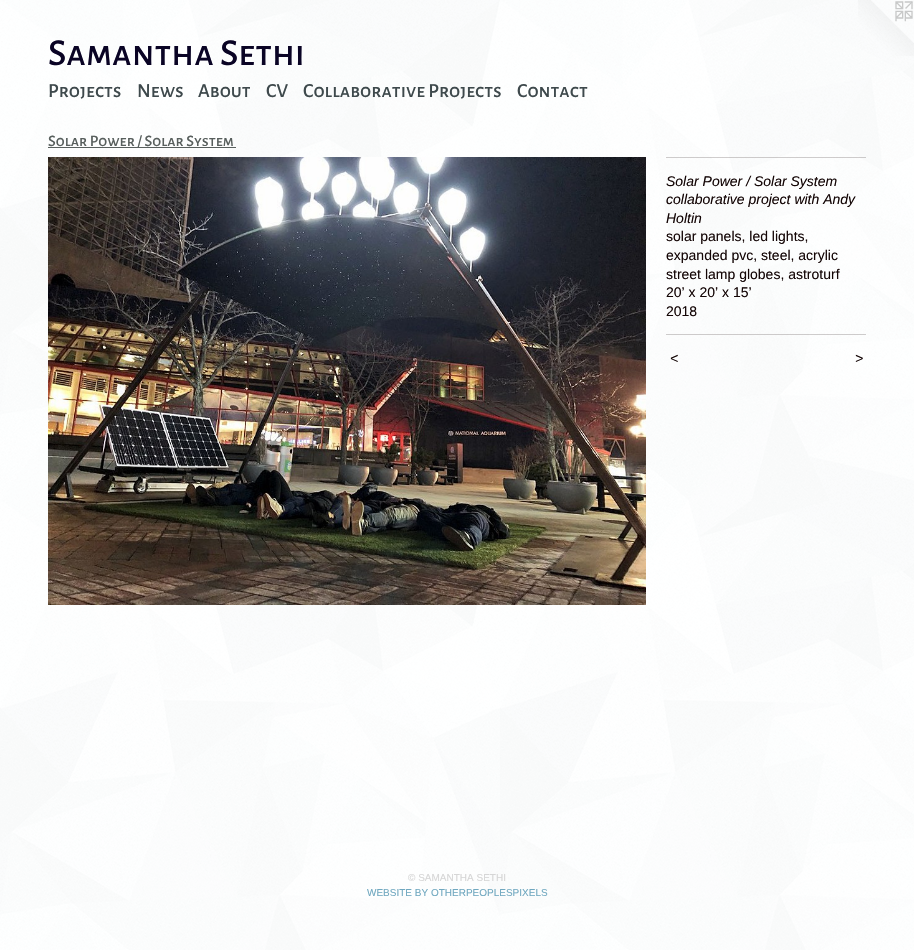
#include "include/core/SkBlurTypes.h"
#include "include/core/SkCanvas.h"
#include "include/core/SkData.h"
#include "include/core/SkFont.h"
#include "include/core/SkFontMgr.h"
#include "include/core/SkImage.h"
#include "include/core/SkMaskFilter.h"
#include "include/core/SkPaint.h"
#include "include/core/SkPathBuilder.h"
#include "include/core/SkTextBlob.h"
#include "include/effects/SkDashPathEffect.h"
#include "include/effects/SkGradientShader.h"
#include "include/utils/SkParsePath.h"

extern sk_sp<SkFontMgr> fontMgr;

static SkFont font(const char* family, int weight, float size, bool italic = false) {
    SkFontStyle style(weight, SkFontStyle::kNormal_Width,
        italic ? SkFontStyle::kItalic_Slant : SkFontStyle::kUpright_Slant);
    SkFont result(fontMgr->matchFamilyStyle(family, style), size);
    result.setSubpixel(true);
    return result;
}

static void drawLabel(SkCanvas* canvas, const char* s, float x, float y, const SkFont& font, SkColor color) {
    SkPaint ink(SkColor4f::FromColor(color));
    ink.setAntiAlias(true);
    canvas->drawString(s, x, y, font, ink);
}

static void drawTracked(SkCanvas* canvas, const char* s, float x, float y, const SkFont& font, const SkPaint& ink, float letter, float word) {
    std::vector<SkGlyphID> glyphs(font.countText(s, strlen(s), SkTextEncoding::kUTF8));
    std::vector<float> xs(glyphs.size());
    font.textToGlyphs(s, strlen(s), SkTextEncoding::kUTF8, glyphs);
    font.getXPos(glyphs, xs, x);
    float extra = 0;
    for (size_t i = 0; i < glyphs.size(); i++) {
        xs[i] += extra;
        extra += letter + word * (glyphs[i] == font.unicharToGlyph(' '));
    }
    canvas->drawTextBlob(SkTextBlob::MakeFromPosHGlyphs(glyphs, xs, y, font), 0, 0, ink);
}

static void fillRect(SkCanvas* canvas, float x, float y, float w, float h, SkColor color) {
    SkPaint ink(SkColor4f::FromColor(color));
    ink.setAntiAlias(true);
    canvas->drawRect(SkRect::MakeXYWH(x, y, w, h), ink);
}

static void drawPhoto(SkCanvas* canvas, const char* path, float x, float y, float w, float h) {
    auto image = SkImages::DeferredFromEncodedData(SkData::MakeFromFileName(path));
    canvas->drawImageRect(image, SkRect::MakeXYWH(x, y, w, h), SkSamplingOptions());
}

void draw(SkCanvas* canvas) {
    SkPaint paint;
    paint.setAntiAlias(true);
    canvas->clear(0xFFFFFFFF);
    drawPhoto(canvas, "assets/img1.png", 0, 0, 914, 950);
    SkFont font1 = font("Alegreya Sans SC", 500, 38);
    drawLabel(canvas, "Samantha Sethi", 48, 65, font1, 0xFF0A0425);
    drawPhoto(canvas, "assets/img2.png", 858, 0, 56, 56);
    SkFont font2 = font("Alegreya Sans SC", 500, 20);
    drawLabel(canvas, "Projects", 48, 97, font2, 0xFF3E494C);
    drawLabel(canvas, "News", 137, 97, font2, 0xFF3E494C);
    drawLabel(canvas, "About", 198, 97, font2, 0xFF3E494C);
    drawLabel(canvas, "CV", 266, 97, font2, 0xFF3E494C);
    drawLabel(canvas, "Collaborative Projects", 303, 97, font2, 0xFF3E494C);
    drawLabel(canvas, "Contact", 517, 97, font2, 0xFF3E494C);
    fillRect(canvas, 48, 147, 188, 1, 0xFF585F5D);
    SkFont font3 = font("Alegreya Sans SC", 500, 16);
    drawLabel(canvas, "Solar Power / Solar System", 48, 146, font3, 0xFF585F5D);
    drawPhoto(canvas, "assets/img3.png", 48, 157, 598, 448);
    fillRect(canvas, 666, 157, 200, 1, 0x33140606);
    SkFont font4 = font("Liberation Sans", 400, 14, true);
    drawLabel(canvas, "Solar Power / Solar System", 666, 186, font4, 0xFF140606);
    drawLabel(canvas, "collaborative project with Andy", 666, 204, font4, 0xFF140606);
    drawLabel(canvas, "Holtin", 666, 223, font4, 0xFF140606);
    SkFont font5 = font("Liberation Sans", 400, 14);
    drawLabel(canvas, "solar panels, led lights,", 666, 241, font5, 0xFF140606);
    drawLabel(canvas, "expanded pvc, steel, acrylic", 666, 260, font5, 0xFF140606);
    drawLabel(canvas, "street lamp globes, astroturf", 666, 279, font5, 0xFF140606);
    drawLabel(canvas, "20’ x 20’ x 15’", 666, 297, font5, 0xFF140606);
    drawLabel(canvas, "2018", 666, 316, font5, 0xFF140606);
    fillRect(canvas, 666, 334, 200, 1, 0x33140606);
    paint.setColor(0xFF140606);
    drawTracked(canvas, "<", 670, 363, font4, paint, 1, 0);
    drawTracked(canvas, ">", 855, 363, font4, paint, 1, 0);
    SkFont font6 = font("Liberation Sans", 400, 10);
    drawLabel(canvas, "© SAMANTHA SETHI", 408, 881, font6, 0xFFD6D6D6);
    drawLabel(canvas, "WEBSITE BY OTHERPEOPLESPIXELS", 367, 896, font6, 0xFF70A8C0);
}
